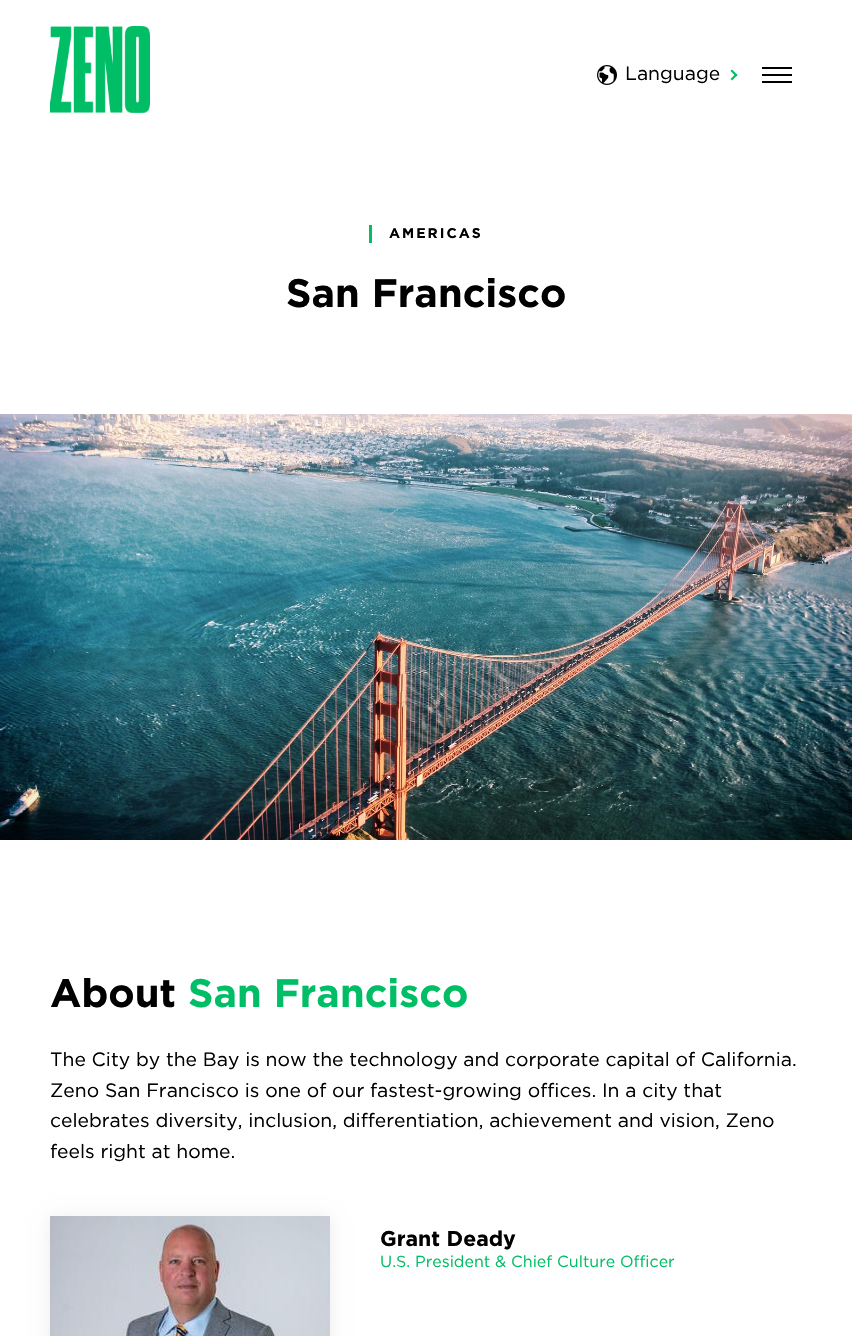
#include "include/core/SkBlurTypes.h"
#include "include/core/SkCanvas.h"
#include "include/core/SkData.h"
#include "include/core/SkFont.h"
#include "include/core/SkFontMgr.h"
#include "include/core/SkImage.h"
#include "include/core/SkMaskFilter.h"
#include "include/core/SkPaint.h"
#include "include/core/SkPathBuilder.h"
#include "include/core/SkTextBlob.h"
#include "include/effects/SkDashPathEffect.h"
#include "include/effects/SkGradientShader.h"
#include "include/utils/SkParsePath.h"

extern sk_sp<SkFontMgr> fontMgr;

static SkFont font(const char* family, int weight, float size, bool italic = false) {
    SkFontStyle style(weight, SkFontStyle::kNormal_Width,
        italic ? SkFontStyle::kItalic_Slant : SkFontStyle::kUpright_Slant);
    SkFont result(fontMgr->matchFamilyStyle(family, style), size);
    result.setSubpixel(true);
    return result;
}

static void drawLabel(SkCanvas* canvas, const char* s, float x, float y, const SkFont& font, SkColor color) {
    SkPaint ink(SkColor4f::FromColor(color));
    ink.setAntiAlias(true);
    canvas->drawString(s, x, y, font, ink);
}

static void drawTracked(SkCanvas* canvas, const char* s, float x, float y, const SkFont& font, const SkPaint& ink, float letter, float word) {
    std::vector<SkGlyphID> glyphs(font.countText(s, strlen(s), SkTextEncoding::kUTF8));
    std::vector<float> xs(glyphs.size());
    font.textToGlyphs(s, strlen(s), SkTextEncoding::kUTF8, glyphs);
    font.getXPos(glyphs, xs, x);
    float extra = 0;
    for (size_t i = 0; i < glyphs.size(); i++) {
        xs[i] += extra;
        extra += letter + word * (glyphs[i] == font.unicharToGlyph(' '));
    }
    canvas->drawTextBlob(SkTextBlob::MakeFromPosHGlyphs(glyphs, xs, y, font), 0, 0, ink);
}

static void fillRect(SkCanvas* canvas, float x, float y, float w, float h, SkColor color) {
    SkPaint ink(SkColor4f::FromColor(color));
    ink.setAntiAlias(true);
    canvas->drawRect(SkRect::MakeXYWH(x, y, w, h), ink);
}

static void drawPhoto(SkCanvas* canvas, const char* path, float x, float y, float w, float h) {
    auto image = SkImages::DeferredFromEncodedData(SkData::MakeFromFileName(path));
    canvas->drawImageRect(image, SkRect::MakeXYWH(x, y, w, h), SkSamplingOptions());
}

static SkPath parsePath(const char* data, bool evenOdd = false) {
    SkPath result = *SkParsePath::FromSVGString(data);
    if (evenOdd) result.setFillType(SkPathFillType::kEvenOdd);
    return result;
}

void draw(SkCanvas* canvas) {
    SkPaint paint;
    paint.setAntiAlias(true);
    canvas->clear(0xFFFFFFFF);
    drawPhoto(canvas, "assets/img1.png", 50, 26, 100, 87);
    drawPhoto(canvas, "assets/img2.png", 597, 65, 20, 20);
    SkFont font1 = font("Gotham", 400, 19.3f);
    drawLabel(canvas, "Language", 625, 80, font1, 0xFF000000);
    paint.setColor(0xFF00BE65);
    canvas->drawPath(parsePath("M730.5 71L732 69.5L737.5 75L736 76.5Z"), paint);
    canvas->drawPath(parsePath("M730.5 79L736 73.5L737.5 75L732 80.5Z"), paint);
    fillRect(canvas, 762, 74, 30, 2, 0xFF000000);
    fillRect(canvas, 762, 67, 30, 2, 0xFF000000);
    fillRect(canvas, 762, 81, 30, 2, 0xFF000000);
    fillRect(canvas, 369, 225, 3, 18, 0xFF00BE65);
    SkFont font2 = font("Gotham", 700, 14);
    paint.setColor(0xFF000000);
    drawTracked(canvas, "AMERICAS", 389, 238, font2, paint, 2, 0);
    SkFont font3 = font("Gotham", 700, 39.75f);
    drawLabel(canvas, "San Francisco", 286, 307, font3, 0xFF000000);
    drawPhoto(canvas, "assets/img3.png", 0, 414, 852, 426);
    drawLabel(canvas, "About", 50, 1007, font3, 0xFF000000);
    drawLabel(canvas, "San Francisco", 188, 1007, font3, 0xFF00BE65);
    drawLabel(canvas, "The City by the Bay is now the technology and corporate capital of California.", 50, 1066, font1, 0xFF000000);
    drawLabel(canvas, "Zeno San Francisco is one of our fastest-growing offices. In a city that", 50, 1097, font1, 0xFF000000);
    drawLabel(canvas, "celebrates diversity, inclusion, differentiation, achievement and vision, Zeno", 50, 1127, font1, 0xFF000000);
    drawLabel(canvas, "feels right at home.", 50, 1158, font1, 0xFF000000);
    paint.setColor(0x14000000);
    paint.setMaskFilter(SkMaskFilter::MakeBlur(kNormal_SkBlurStyle, 8));
    canvas->drawRect(SkRect::MakeXYWH(50, 1218, 280, 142), paint);
    paint.setMaskFilter(nullptr);
    drawPhoto(canvas, "assets/img4.png", 50, 1216, 280, 120);
    SkFont font4 = font("Gotham", 700, 21.25f);
    drawLabel(canvas, "Grant Deady", 380, 1246, font4, 0xFF000000);
    SkFont font5 = font("Gotham", 400, 16);
    drawLabel(canvas, "U.S. President & Chief Culture Officer", 380, 1267, font5, 0xFF00BE65);
}
